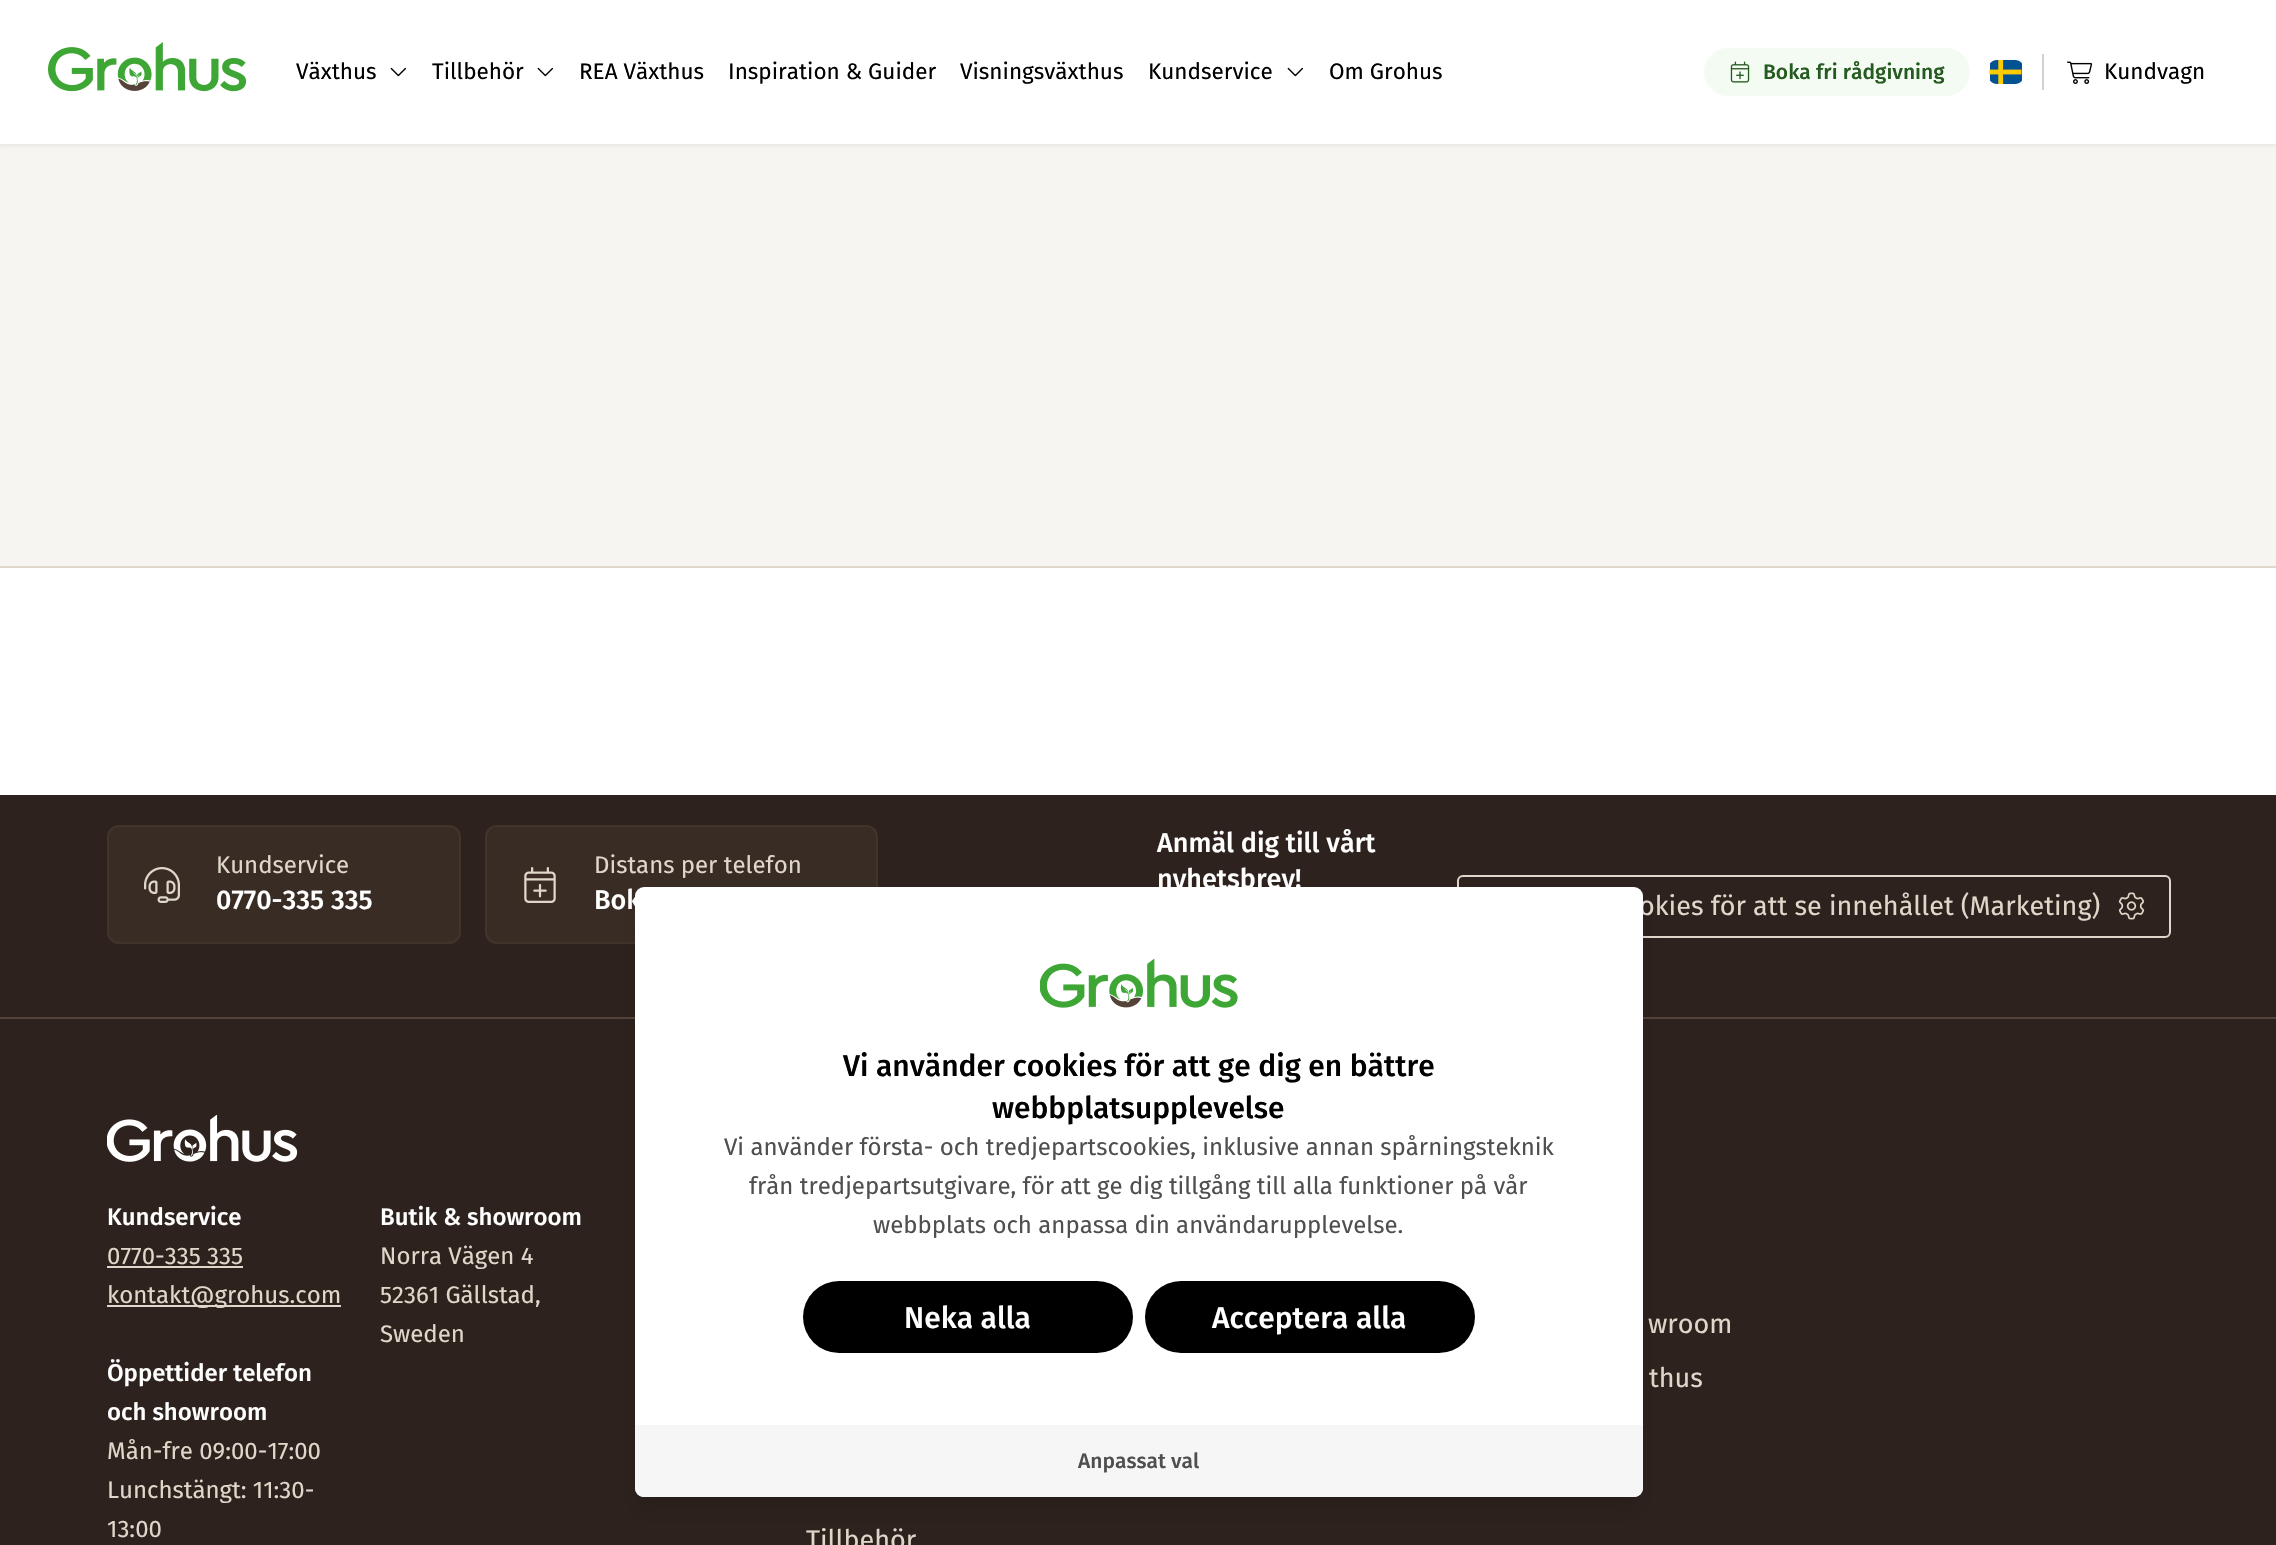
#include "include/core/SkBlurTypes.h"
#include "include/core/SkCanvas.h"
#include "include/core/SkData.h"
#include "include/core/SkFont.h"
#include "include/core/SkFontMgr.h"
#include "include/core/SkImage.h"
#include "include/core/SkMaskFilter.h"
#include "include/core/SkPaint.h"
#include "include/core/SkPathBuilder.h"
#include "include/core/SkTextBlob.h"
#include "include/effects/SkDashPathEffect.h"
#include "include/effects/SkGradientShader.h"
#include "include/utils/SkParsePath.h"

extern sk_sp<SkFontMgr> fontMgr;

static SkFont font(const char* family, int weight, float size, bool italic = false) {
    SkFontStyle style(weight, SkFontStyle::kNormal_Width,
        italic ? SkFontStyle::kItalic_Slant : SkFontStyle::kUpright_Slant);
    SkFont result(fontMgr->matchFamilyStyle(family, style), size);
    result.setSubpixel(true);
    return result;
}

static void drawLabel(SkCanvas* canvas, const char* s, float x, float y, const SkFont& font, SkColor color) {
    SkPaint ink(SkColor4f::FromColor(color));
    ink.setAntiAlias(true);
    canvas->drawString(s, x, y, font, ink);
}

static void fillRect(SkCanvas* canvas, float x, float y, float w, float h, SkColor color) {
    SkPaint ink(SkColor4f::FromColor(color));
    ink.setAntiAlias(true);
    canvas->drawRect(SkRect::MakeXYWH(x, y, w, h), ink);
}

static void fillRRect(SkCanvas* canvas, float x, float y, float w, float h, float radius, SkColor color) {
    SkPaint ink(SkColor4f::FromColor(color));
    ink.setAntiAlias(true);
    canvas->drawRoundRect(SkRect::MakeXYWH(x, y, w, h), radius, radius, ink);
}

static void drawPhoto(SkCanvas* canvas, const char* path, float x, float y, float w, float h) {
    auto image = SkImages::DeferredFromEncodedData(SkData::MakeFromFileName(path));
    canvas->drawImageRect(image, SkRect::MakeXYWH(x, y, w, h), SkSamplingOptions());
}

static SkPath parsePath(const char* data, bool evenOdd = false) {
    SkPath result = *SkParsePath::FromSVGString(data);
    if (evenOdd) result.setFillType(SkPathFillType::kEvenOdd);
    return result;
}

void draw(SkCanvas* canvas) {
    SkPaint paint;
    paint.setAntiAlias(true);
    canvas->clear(0xFFF7F5F1);
    paint.setColor(0x0D000000);
    paint.setMaskFilter(SkMaskFilter::MakeBlur(kNormal_SkBlurStyle, 1.5f));
    canvas->drawRect(SkRect::MakeXYWH(0, -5, 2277, 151), paint);
    paint.setMaskFilter(nullptr);
    fillRect(canvas, 0, 0, 2276, 144, 0xFFFFFFFF);
    drawPhoto(canvas, "assets/img1.png", 48, 42, 199, 50);
    SkFont font1 = font("Fira Sans", 400, 22.5f);
    drawLabel(canvas, "Växthus", 296, 79, font1, 0xFF000000);
    drawPhoto(canvas, "assets/img2.png", 390, 67, 16, 10);
    drawLabel(canvas, "Tillbehör", 432, 79, font1, 0xFF000000);
    drawPhoto(canvas, "assets/img2.png", 537, 67, 16, 10);
    drawLabel(canvas, "REA Växthus", 579, 79, font1, 0xFF000000);
    drawLabel(canvas, "Inspiration & Guider", 728, 79, font1, 0xFF000000);
    drawLabel(canvas, "Visningsväxthus", 960, 79, font1, 0xFF000000);
    drawLabel(canvas, "Kundservice", 1148, 79, font1, 0xFF000000);
    drawPhoto(canvas, "assets/img2.png", 1287, 67, 16, 10);
    drawLabel(canvas, "Om Grohus", 1329, 79, font1, 0xFF000000);
    fillRRect(canvas, 1704, 48, 266, 48, 24, 0xFFF3FBF2);
    drawPhoto(canvas, "assets/img3.png", 1730, 61, 20, 22);
    SkFont font2 = font("Fira Sans", 500, 21);
    drawLabel(canvas, "Boka fri rådgivning", 1763, 79, font2, 0xFF255A21);
    drawPhoto(canvas, "assets/img4.png", 1989, 60, 33, 24);
    fillRect(canvas, 2042, 54, 2, 36, 0xFFD1D1D1);
    drawPhoto(canvas, "assets/img5.png", 2067, 61, 26, 23);
    drawLabel(canvas, "Kundvagn", 2104, 79, font1, 0xFF000000);
    fillRect(canvas, 0, 568, 2276, 227, 0xFFFFFFFF);
    fillRect(canvas, 0, 566, 2276, 2, 0xFFDFD7C9);
    fillRect(canvas, 0, 795, 2276, 750, 0xFF2D221D);
    fillRect(canvas, 0, 1017, 2276, 2, 0xFF554339);
    fillRRect(canvas, 107, 825, 354, 119, 12, 0xFF392C25);
    paint.setStroke(true);
    paint.setStrokeWidth(2);
    paint.setColor(0x4D554339);
    canvas->drawRoundRect(SkRect::MakeXYWH(108, 826, 352, 117), 11, 11, paint);
    drawPhoto(canvas, "assets/img6.png", 144, 867, 36, 36);
    SkFont font3 = font("Fira Sans", 400, 24);
    drawLabel(canvas, "Kundservice", 216, 873, font3, 0xFFDFD7C9);
    SkFont font4 = font("Fira Sans", 500, 27);
    drawLabel(canvas, "0770-335 335", 216, 909, font4, 0xFFFFFFFF);
    fillRRect(canvas, 485, 825, 393, 119, 12, 0xFF392C25);
    canvas->drawRoundRect(SkRect::MakeXYWH(486, 826, 391, 117), 11, 11, paint);
    drawPhoto(canvas, "assets/img7.png", 524, 867, 32, 36);
    drawLabel(canvas, "Distans per telefon", 594, 873, font3, 0xFFDFD7C9);
    drawLabel(canvas, "Bok", 594, 909, font4, 0xFFFFFFFF);
    drawLabel(canvas, "Anmäl dig till vårt", 1157, 852, font4, 0xFFFFFFFF);
    drawLabel(canvas, "nyhetsbrev!", 1157, 888, font4, 0xFFFFFFFF);
    paint.setColor(0xFFDFD7C9);
    canvas->drawRoundRect(SkRect::MakeXYWH(1458, 876, 712, 61), 5, 5, paint);
    SkFont font5 = font("Fira Sans", 400, 27);
    drawLabel(canvas, "okies för att se innehållet (Marketing)", 1639, 915, font5, 0xFFDFD7C9);
    drawPhoto(canvas, "assets/img8.png", 2118, 892, 27, 28);
    drawPhoto(canvas, "assets/img9.png", 107, 1115, 191, 47);
    SkFont font6 = font("Fira Sans", 500, 24);
    drawLabel(canvas, "Kundservice", 107, 1225, font6, 0xFFFFFFFF);
    drawLabel(canvas, "0770-335 335", 107, 1264, font3, 0xFFDFD7C9);
    fillRect(canvas, 107, 1266, 136, 2, 0xFFDFD7C9);
    fillRect(canvas, 107, 1305, 234, 2, 0xFFDFD7C9);
    drawLabel(canvas, "kontakt@grohus.com", 107, 1303, font3, 0xFFDFD7C9);
    drawLabel(canvas, "Öppettider telefon", 107, 1381, font6, 0xFFFFFFFF);
    drawLabel(canvas, "och showroom", 107, 1420, font6, 0xFFFFFFFF);
    drawLabel(canvas, "Mån-fre 09:00-17:00", 107, 1459, font3, 0xFFDFD7C9);
    drawLabel(canvas, "Lunchstängt: 11:30-", 107, 1498, font3, 0xFFDFD7C9);
    drawLabel(canvas, "13:00", 107, 1537, font3, 0xFFDFD7C9);
    drawLabel(canvas, "Butik & showroom", 380, 1225, font6, 0xFFFFFFFF);
    drawLabel(canvas, "Norra Vägen 4", 380, 1264, font3, 0xFFDFD7C9);
    drawLabel(canvas, "52361 Gällstad,", 380, 1303, font3, 0xFFDFD7C9);
    drawLabel(canvas, "Sweden", 380, 1342, font3, 0xFFDFD7C9);
    drawLabel(canvas, "wroom", 1648, 1333, font5, 0xFFDFD7C9);
    drawLabel(canvas, "thus", 1649, 1387, font5, 0xFFDFD7C9);
    drawLabel(canvas, "Tillbehör", 806, 1549, font5, 0xFFDFD7C9);
    paint.setStroke(false);
    paint.setColor(0x1A000000);
    paint.setMaskFilter(SkMaskFilter::MakeBlur(kNormal_SkBlurStyle, 4.5f));
    canvas->drawRoundRect(SkRect::MakeXYWH(641, 899, 996, 598), 3, 3, paint);
    paint.setMaskFilter(nullptr);
    paint.setMaskFilter(SkMaskFilter::MakeBlur(kNormal_SkBlurStyle, 11));
    canvas->drawRoundRect(SkRect::MakeXYWH(639, 906, 999, 602), 5, 5, paint);
    paint.setMaskFilter(nullptr);
    fillRRect(canvas, 635, 887, 1008, 610, 9, 0xFFFFFFFF);
    drawPhoto(canvas, "assets/img10.png", 1040, 959, 198, 49);
    SkFont font7 = font("Fira Sans", 500, 30);
    drawLabel(canvas, "Vi använder cookies för att ge dig en bättre", 843, 1076, font7, 0xFF000000);
    drawLabel(canvas, "webbplatsupplevelse", 992, 1118, font7, 0xFF000000);
    drawLabel(canvas, "Vi använder första- och tredjepartscookies, inklusive annan spårningsteknik", 724, 1155, font3, 0xFF4F4F4F);
    drawLabel(canvas, "från tredjepartsutgivare, för att ge dig tillgång till alla funktioner på vår", 749, 1194, font3, 0xFF4F4F4F);
    drawLabel(canvas, "webbplats och anpassa din användarupplevelse.", 873, 1233, font3, 0xFF4F4F4F);
    fillRRect(canvas, 803, 1281, 330, 72, 36, 0xFF000000);
    drawLabel(canvas, "Neka alla", 904, 1328, font7, 0xFFFFFFFF);
    fillRRect(canvas, 1145, 1281, 330, 72, 36, 0xFF000000);
    drawLabel(canvas, "Acceptera alla", 1212, 1328, font7, 0xFFFFFFFF);
    paint.setColor(0xFFF6F6F6);
    canvas->drawPath(parsePath("M635 1425H1643V1488C1643 1493 1639 1497 1634 1497H644C639 1497 635 1493 635 1488Z"), paint);
    drawLabel(canvas, "Anpassat val", 1078, 1468, font2, 0xFF4F4F4F);
}
